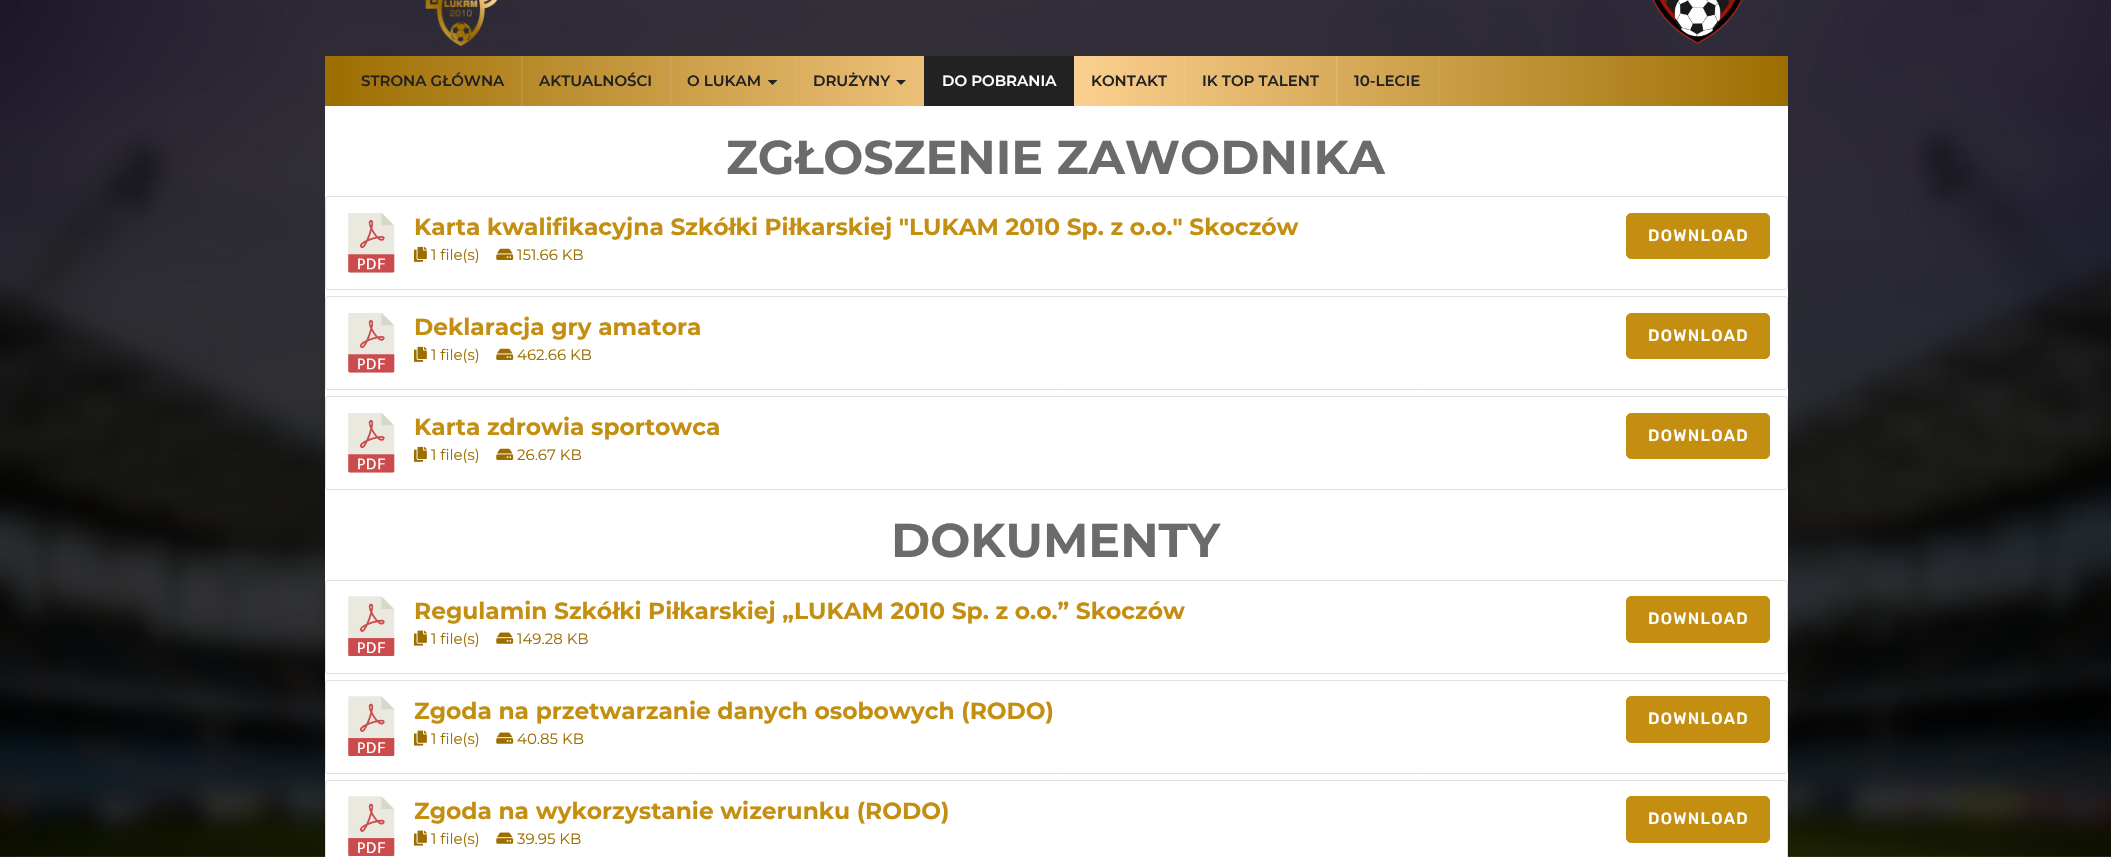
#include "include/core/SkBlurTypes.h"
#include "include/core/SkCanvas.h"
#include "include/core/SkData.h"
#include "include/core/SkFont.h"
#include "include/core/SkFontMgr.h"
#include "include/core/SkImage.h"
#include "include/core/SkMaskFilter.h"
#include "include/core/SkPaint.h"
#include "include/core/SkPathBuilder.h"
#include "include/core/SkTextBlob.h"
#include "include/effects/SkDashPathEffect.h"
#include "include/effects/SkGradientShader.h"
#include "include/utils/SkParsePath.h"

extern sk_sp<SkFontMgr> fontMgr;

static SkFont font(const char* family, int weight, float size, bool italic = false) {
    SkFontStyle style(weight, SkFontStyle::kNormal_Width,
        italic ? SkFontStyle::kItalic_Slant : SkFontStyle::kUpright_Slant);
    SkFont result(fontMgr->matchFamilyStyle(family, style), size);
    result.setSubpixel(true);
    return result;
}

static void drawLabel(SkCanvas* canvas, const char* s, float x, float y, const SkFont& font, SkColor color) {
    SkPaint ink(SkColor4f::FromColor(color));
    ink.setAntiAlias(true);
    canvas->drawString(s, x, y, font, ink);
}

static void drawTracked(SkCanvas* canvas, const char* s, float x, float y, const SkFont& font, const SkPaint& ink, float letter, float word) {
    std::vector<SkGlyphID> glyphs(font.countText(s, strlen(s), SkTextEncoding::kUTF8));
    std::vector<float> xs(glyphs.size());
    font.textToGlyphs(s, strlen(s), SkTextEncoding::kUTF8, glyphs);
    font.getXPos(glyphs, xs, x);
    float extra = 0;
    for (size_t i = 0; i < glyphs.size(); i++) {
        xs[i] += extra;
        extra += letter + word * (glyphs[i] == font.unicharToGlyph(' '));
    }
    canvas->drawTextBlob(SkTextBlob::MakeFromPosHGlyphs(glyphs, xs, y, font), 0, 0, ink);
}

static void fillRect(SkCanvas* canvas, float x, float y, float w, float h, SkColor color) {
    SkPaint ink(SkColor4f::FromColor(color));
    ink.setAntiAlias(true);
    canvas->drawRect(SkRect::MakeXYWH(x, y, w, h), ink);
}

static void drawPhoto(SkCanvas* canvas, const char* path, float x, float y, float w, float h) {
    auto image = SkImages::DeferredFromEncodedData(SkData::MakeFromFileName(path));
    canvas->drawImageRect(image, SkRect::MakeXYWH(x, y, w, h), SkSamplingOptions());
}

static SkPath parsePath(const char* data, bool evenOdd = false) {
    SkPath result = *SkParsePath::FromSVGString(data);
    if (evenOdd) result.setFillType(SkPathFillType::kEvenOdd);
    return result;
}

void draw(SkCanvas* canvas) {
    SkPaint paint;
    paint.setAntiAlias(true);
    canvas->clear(0xFFFFFFFF);
    drawPhoto(canvas, "assets/img1.png", 0, 0, 2111, 857);
    drawPhoto(canvas, "assets/img2.png", 425, 0, 73, 46);
    drawPhoto(canvas, "assets/img3.png", 1652, 0, 91, 44);
    {
        const SkColor colors[] = {0xFF9C6E01, 0xFFFED293, 0xFF9C6E01};
        const float stops[] = {0, 0.5f, 1};
        const SkPoint ends[] = {{325, 81}, {1788, 81}};
        paint.setShader(SkGradientShader::MakeLinear(ends, colors, stops, 3, SkTileMode::kClamp));
        paint.setAlpha(255);
    }
    canvas->drawRect(SkRect::MakeXYWH(325, 56, 1463, 50), paint);
    paint.setShader(nullptr);
    paint.setColor(0xFFBD953E);
    canvas->drawPath(parsePath("M345 56H521V106H523V56Z"), paint);
    SkFont font1 = font("Montserrat", 600, 15);
    drawLabel(canvas, "STRONA GŁÓWNA", 361, 86, font1, 0xFF222222);
    paint.setColor(0xFFCFA759);
    canvas->drawPath(parsePath("M523 56H670V106H671V56Z"), paint);
    drawLabel(canvas, "AKTUALNOŚCI", 539, 86, font1, 0xFF222222);
    paint.setColor(0xFFDFB66F);
    canvas->drawPath(parsePath("M671 56H795V106H796V56Z"), paint);
    drawLabel(canvas, "O LUKAM", 687, 86, font1, 0xFF222222);
    paint.setColor(0xFF222222);
    canvas->drawPath(parsePath("M767.5 80H777.5L772.5 85Z"), paint);
    drawLabel(canvas, "DRUŻYNY", 813, 86, font1, 0xFF222222);
    canvas->drawPath(parsePath("M896 80H906L901 85Z"), paint);
    paint.setColor(0xFFFCD59A);
    canvas->drawPath(parsePath("M925 56H1074V106H1075V56Z"), paint);
    fillRect(canvas, 924, 56, 150, 50, 0xFF222222);
    drawLabel(canvas, "DO POBRANIA", 942, 86, font1, 0xFFFFFFFF);
    paint.setColor(0xFFEFC686);
    canvas->drawPath(parsePath("M1075 56H1185V106H1186V56Z"), paint);
    drawLabel(canvas, "KONTAKT", 1091, 86, font1, 0xFF222222);
    paint.setColor(0xFFDCB46B);
    canvas->drawPath(parsePath("M1186 56H1336V106H1338V56Z"), paint);
    drawLabel(canvas, "IK TOP TALENT", 1202, 86, font1, 0xFF222222);
    paint.setColor(0xFFD0A859);
    canvas->drawPath(parsePath("M1338 56H1438V106H1439V56Z"), paint);
    drawLabel(canvas, "10-LECIE", 1354, 86, font1, 0xFF222222);
    fillRect(canvas, 325, 106, 1463, 751, 0xFFFFFFFF);
    SkFont font2 = font("Montserrat", 700, 47.5f);
    drawLabel(canvas, "ZGŁOSZENIE ZAWODNIKA", 726, 174, font2, 0xFF6B6B6B);
    paint.setStroke(true);
    paint.setStrokeWidth(1);
    paint.setColor(0xFFDFDFDF);
    canvas->drawRoundRect(SkRect::MakeXYWH(325.5f, 196.5f, 1462, 93), 2.5f, 2.5f, paint);
    drawPhoto(canvas, "assets/img4.png", 348, 213, 47, 60);
    SkFont font3 = font("Montserrat", 700, 23.35f);
    drawLabel(canvas, "Karta kwalifikacyjna Szkółki Piłkarskiej \"LUKAM 2010 Sp. z o.o.\" Skoczów", 414, 235, font3, 0xFFC48E11);
    drawPhoto(canvas, "assets/img5.png", 414, 246, 13, 16);
    SkFont font4 = font("Montserrat", 400, 15);
    drawLabel(canvas, "1 file(s)", 431, 260, font4, 0xFF9C6E01);
    drawPhoto(canvas, "assets/img6.png", 496, 248, 18, 12);
    drawLabel(canvas, "151.66 KB", 517, 260, font4, 0xFF9C6E01);
    paint.setStroke(false);
    paint.setColor(0xFFC48E11);
    canvas->drawRoundRect(SkRect::MakeXYWH(1626.5f, 213.5f, 143, 45), 4.5f, 4.5f, paint);
    paint.setStroke(true);
    canvas->drawRoundRect(SkRect::MakeXYWH(1626.5f, 213.5f, 143, 45), 4.5f, 4.5f, paint);
    SkFont font5 = font("Rubik", 500, 16.25f);
    paint.setStroke(false);
    paint.setColor(0xFFFFFFFF);
    drawTracked(canvas, "DOWNLOAD", 1648, 241, font5, paint, 1.25f, 0);
    paint.setStroke(true);
    paint.setColor(0xFFDFDFDF);
    canvas->drawRoundRect(SkRect::MakeXYWH(325.5f, 296.5f, 1462, 93), 2.5f, 2.5f, paint);
    drawPhoto(canvas, "assets/img4.png", 348, 313, 47, 60);
    drawLabel(canvas, "Deklaracja gry amatora", 414, 335, font3, 0xFFC48E11);
    drawPhoto(canvas, "assets/img5.png", 414, 346, 13, 16);
    drawLabel(canvas, "1 file(s)", 431, 360, font4, 0xFF9C6E01);
    drawPhoto(canvas, "assets/img6.png", 496, 348, 18, 12);
    drawLabel(canvas, "462.66 KB", 517, 360, font4, 0xFF9C6E01);
    paint.setStroke(false);
    paint.setColor(0xFFC48E11);
    canvas->drawRoundRect(SkRect::MakeXYWH(1626.5f, 313.5f, 143, 45), 4.5f, 4.5f, paint);
    paint.setStroke(true);
    canvas->drawRoundRect(SkRect::MakeXYWH(1626.5f, 313.5f, 143, 45), 4.5f, 4.5f, paint);
    paint.setStroke(false);
    paint.setColor(0xFFFFFFFF);
    drawTracked(canvas, "DOWNLOAD", 1648, 341, font5, paint, 1.25f, 0);
    paint.setStroke(true);
    paint.setColor(0xFFDFDFDF);
    canvas->drawRoundRect(SkRect::MakeXYWH(325.5f, 396.5f, 1462, 93), 2.5f, 2.5f, paint);
    drawPhoto(canvas, "assets/img4.png", 348, 413, 47, 60);
    drawLabel(canvas, "Karta zdrowia sportowca", 414, 435, font3, 0xFFC48E11);
    drawPhoto(canvas, "assets/img5.png", 414, 446, 13, 16);
    drawLabel(canvas, "1 file(s)", 431, 460, font4, 0xFF9C6E01);
    drawPhoto(canvas, "assets/img6.png", 496, 448, 18, 12);
    drawLabel(canvas, "26.67 KB", 517, 460, font4, 0xFF9C6E01);
    paint.setStroke(false);
    paint.setColor(0xFFC48E11);
    canvas->drawRoundRect(SkRect::MakeXYWH(1626.5f, 413.5f, 143, 45), 4.5f, 4.5f, paint);
    paint.setStroke(true);
    canvas->drawRoundRect(SkRect::MakeXYWH(1626.5f, 413.5f, 143, 45), 4.5f, 4.5f, paint);
    paint.setStroke(false);
    paint.setColor(0xFFFFFFFF);
    drawTracked(canvas, "DOWNLOAD", 1648, 441, font5, paint, 1.25f, 0);
    drawLabel(canvas, "DOKUMENTY", 891, 557, font2, 0xFF6B6B6B);
    paint.setStroke(true);
    paint.setColor(0xFFDFDFDF);
    canvas->drawRoundRect(SkRect::MakeXYWH(325.5f, 580.5f, 1462, 93), 2.5f, 2.5f, paint);
    drawPhoto(canvas, "assets/img7.png", 348, 596, 47, 60);
    drawLabel(canvas, "Regulamin Szkółki Piłkarskiej „LUKAM 2010 Sp. z o.o.” Skoczów", 414, 619, font3, 0xFFC48E11);
    drawPhoto(canvas, "assets/img8.png", 414, 630, 13, 16);
    drawLabel(canvas, "1 file(s)", 431, 644, font4, 0xFF9C6E01);
    drawPhoto(canvas, "assets/img9.png", 496, 632, 18, 12);
    drawLabel(canvas, "149.28 KB", 517, 644, font4, 0xFF9C6E01);
    paint.setStroke(false);
    paint.setColor(0xFFC48E11);
    canvas->drawRoundRect(SkRect::MakeXYWH(1626.5f, 596.5f, 143, 46), 4.5f, 4.5f, paint);
    paint.setStroke(true);
    canvas->drawRoundRect(SkRect::MakeXYWH(1626.5f, 596.5f, 143, 46), 4.5f, 4.5f, paint);
    paint.setStroke(false);
    paint.setColor(0xFFFFFFFF);
    drawTracked(canvas, "DOWNLOAD", 1648, 624, font5, paint, 1.25f, 0);
    paint.setStroke(true);
    paint.setColor(0xFFDFDFDF);
    canvas->drawRoundRect(SkRect::MakeXYWH(325.5f, 680.5f, 1462, 93), 2.5f, 2.5f, paint);
    drawPhoto(canvas, "assets/img7.png", 348, 696, 47, 60);
    drawLabel(canvas, "Zgoda na przetwarzanie danych osobowych (RODO)", 414, 719, font3, 0xFFC48E11);
    drawPhoto(canvas, "assets/img8.png", 414, 730, 13, 16);
    drawLabel(canvas, "1 file(s)", 431, 744, font4, 0xFF9C6E01);
    drawPhoto(canvas, "assets/img9.png", 496, 732, 18, 12);
    drawLabel(canvas, "40.85 KB", 517, 744, font4, 0xFF9C6E01);
    paint.setStroke(false);
    paint.setColor(0xFFC48E11);
    canvas->drawRoundRect(SkRect::MakeXYWH(1626.5f, 696.5f, 143, 46), 4.5f, 4.5f, paint);
    paint.setStroke(true);
    canvas->drawRoundRect(SkRect::MakeXYWH(1626.5f, 696.5f, 143, 46), 4.5f, 4.5f, paint);
    paint.setStroke(false);
    paint.setColor(0xFFFFFFFF);
    drawTracked(canvas, "DOWNLOAD", 1648, 724, font5, paint, 1.25f, 0);
    paint.setStroke(true);
    paint.setColor(0xFFDFDFDF);
    canvas->drawRoundRect(SkRect::MakeXYWH(325.5f, 780.5f, 1462, 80), 2.5f, 2.5f, paint);
    drawPhoto(canvas, "assets/img7.png", 348, 796, 47, 60);
    drawLabel(canvas, "Zgoda na wykorzystanie wizerunku (RODO)", 414, 819, font3, 0xFFC48E11);
    drawPhoto(canvas, "assets/img8.png", 414, 830, 13, 16);
    drawLabel(canvas, "1 file(s)", 431, 844, font4, 0xFF9C6E01);
    drawPhoto(canvas, "assets/img9.png", 496, 832, 18, 12);
    drawLabel(canvas, "39.95 KB", 517, 844, font4, 0xFF9C6E01);
    paint.setStroke(false);
    paint.setColor(0xFFC48E11);
    canvas->drawRoundRect(SkRect::MakeXYWH(1626.5f, 796.5f, 143, 46), 4.5f, 4.5f, paint);
    paint.setStroke(true);
    canvas->drawRoundRect(SkRect::MakeXYWH(1626.5f, 796.5f, 143, 46), 4.5f, 4.5f, paint);
    paint.setStroke(false);
    paint.setColor(0xFFFFFFFF);
    drawTracked(canvas, "DOWNLOAD", 1648, 824, font5, paint, 1.25f, 0);
}
